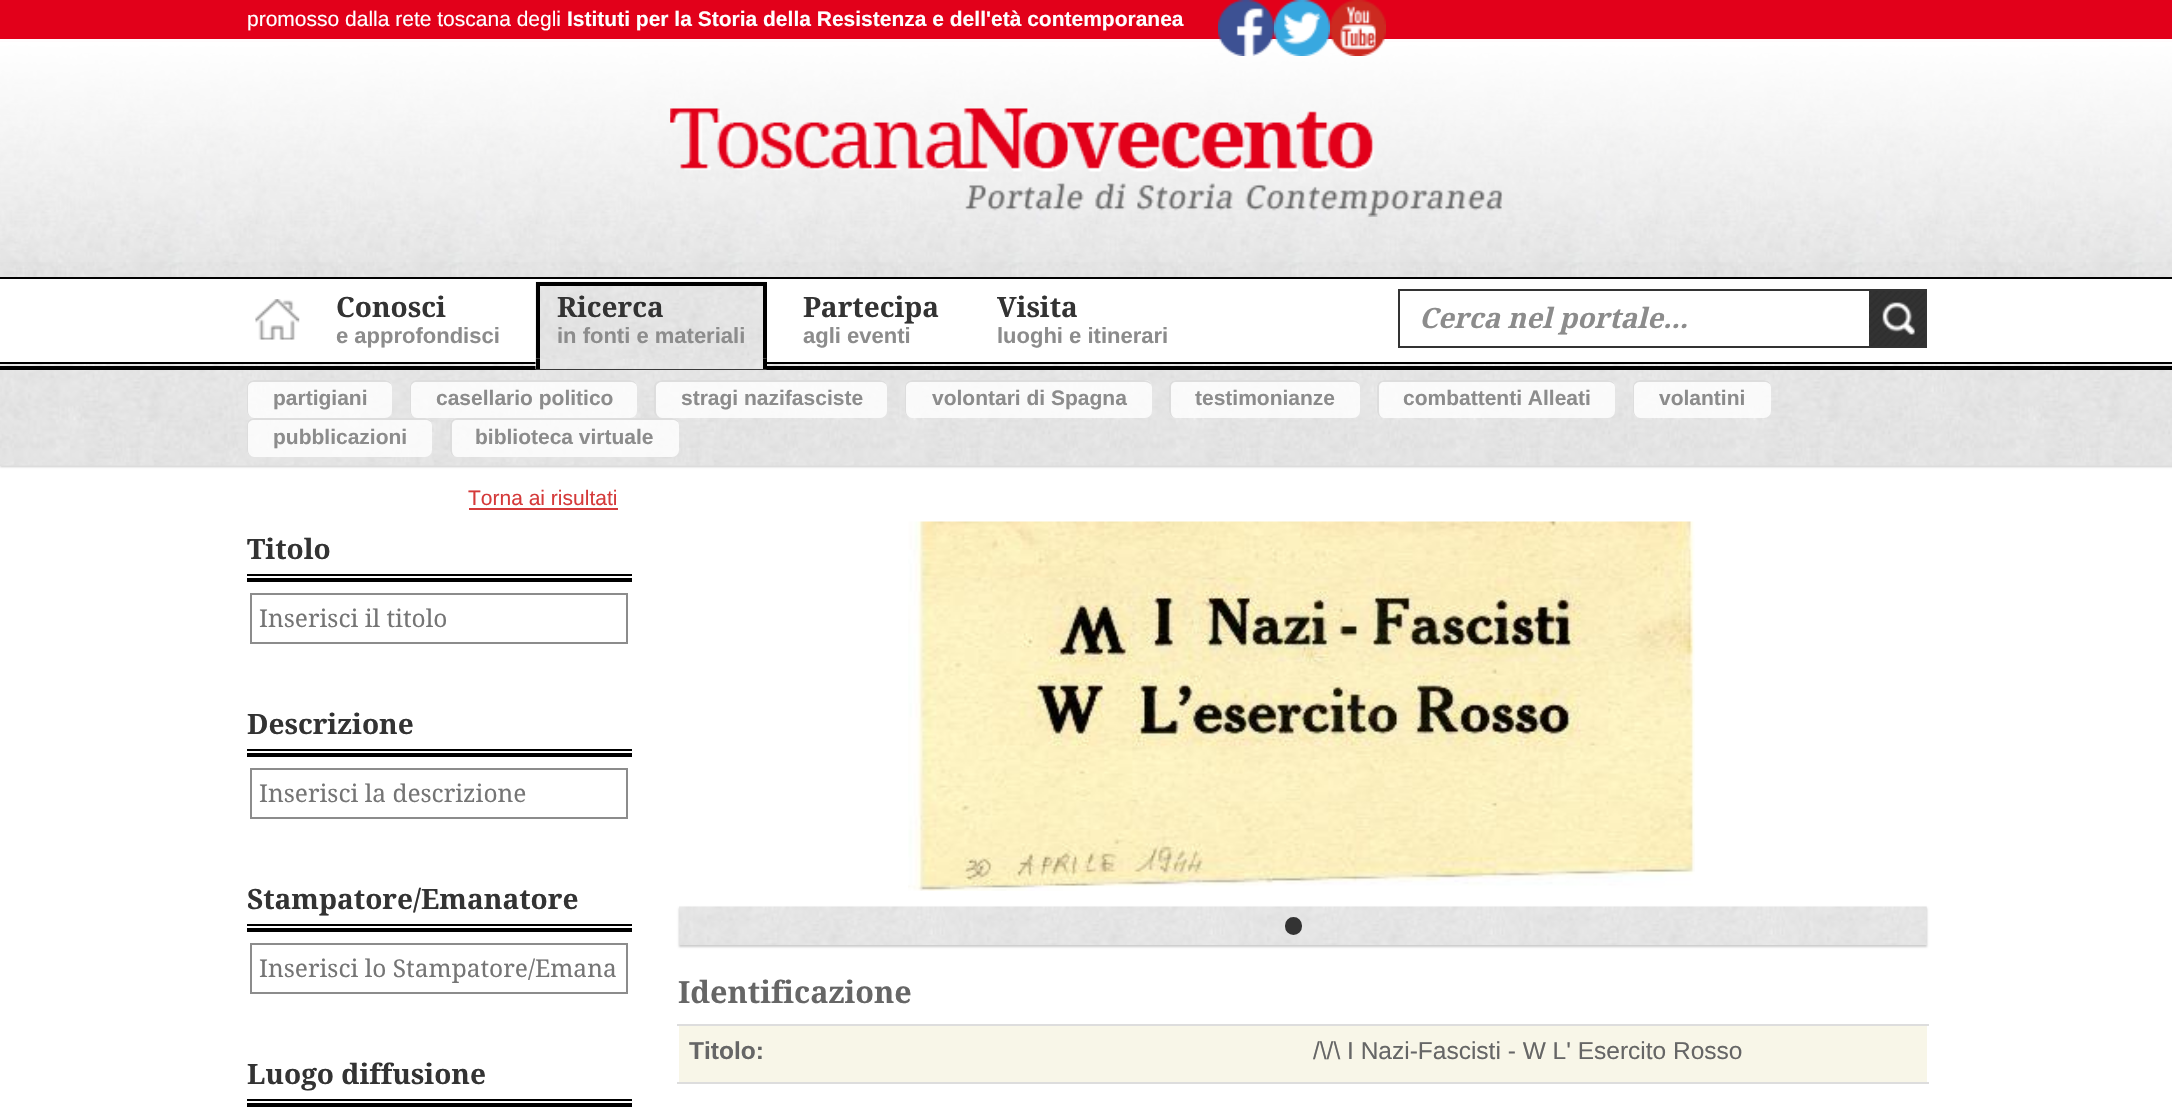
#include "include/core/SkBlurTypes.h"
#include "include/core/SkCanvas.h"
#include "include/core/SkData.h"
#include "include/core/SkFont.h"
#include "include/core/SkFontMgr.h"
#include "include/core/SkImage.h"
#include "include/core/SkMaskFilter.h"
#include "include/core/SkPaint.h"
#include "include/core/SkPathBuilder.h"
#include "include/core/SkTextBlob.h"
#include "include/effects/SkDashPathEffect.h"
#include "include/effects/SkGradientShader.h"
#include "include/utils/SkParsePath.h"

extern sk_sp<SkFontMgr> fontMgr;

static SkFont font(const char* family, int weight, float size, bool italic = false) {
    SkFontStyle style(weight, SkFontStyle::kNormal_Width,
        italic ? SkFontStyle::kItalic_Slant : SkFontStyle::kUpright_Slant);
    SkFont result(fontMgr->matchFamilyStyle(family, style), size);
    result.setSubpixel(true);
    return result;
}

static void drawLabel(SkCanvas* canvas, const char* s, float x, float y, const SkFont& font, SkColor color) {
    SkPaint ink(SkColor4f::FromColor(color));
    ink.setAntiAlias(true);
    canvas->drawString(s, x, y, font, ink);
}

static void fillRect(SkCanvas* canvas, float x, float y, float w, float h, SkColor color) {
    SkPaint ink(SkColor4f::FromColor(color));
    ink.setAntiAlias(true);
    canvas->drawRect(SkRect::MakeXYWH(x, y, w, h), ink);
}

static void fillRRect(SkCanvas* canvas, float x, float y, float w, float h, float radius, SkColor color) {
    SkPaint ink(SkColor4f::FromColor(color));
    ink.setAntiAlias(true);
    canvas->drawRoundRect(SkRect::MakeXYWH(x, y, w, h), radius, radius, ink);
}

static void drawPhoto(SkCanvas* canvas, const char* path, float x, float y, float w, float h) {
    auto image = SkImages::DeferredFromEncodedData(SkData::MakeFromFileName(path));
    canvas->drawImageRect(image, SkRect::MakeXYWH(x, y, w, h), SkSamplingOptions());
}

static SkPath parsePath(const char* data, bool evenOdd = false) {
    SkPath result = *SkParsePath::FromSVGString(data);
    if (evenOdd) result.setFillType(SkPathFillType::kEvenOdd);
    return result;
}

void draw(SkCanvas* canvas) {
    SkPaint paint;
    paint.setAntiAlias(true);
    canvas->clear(0xFFFFFFFF);
    drawPhoto(canvas, "assets/img1.png", 0, 42, 2172, 235);
    fillRect(canvas, 0, 0, 2172, 42, 0xFFE2001A);
    SkFont font1 = font("Liberation Sans", 400, 21);
    drawLabel(canvas, "promosso dalla rete toscana degli", 247, 26, font1, 0xFFFFFFFF);
    SkFont font2 = font("Liberation Sans", 700, 21);
    drawLabel(canvas, "Istituti per la Storia della Resistenza e dell'età contemporanea", 567, 26, font2, 0xFFFFFFFF);
    {
        const SkColor colors[] = {0xFFFFFFFF, 0x00FFFFFF};
        const float stops[] = {0, 1};
        const SkPoint ends[] = {{1087, 38}, {1087, 282}};
        paint.setShader(SkGradientShader::MakeLinear(ends, colors, stops, 2, SkTileMode::kClamp));
        paint.setAlpha(255);
    }
    canvas->drawRect(SkRect::MakeXYWH(0, 39, 2172, 223), paint);
    drawPhoto(canvas, "assets/img2.png", 1218, 0, 56, 56);
    drawPhoto(canvas, "assets/img3.png", 1274, 0, 56, 56);
    drawPhoto(canvas, "assets/img4.png", 1330, 0, 56, 56);
    drawPhoto(canvas, "assets/img5.png", 670, 108, 833, 109);
    fillRect(canvas, 0, 277, 2172, 2, 0xFF000000);
    paint.setShader(nullptr);
    paint.setColor(0x33000000);
    paint.setMaskFilter(SkMaskFilter::MakeBlur(kNormal_SkBlurStyle, 1));
    canvas->drawRect(SkRect::MakeXYWH(0, 366, 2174, 101), paint);
    paint.setMaskFilter(nullptr);
    fillRect(canvas, 0, 362, 2172, 2, 0xFF000000);
    drawPhoto(canvas, "assets/img6.png", 255, 299, 45, 41);
    SkFont font3 = font("Noto Serif", 700, 28);
    drawLabel(canvas, "Conosci", 336, 317, font3, 0xFF333333);
    SkFont font4 = font("Liberation Sans", 700, 22);
    drawLabel(canvas, "e approfondisci", 336, 343, font4, 0xFF8C8C8C);
    drawPhoto(canvas, "assets/img7.png", 535, 281, 232, 82);
    fillRect(canvas, 536, 282, 231, 4, 0xFF000000);
    fillRect(canvas, 763, 282, 4, 80, 0xFF000000);
    fillRect(canvas, 536, 282, 4, 80, 0xFF000000);
    drawLabel(canvas, "Ricerca", 557, 317, font3, 0xFF333333);
    drawLabel(canvas, "in fonti e materiali", 557, 343, font4, 0xFF8C8C8C);
    fillRect(canvas, 0, 465, 2172, 1, 0xFFDDDDDD);
    drawPhoto(canvas, "assets/img10.png", 0, 364, 2172, 102);
    fillRect(canvas, 0, 366, 2172, 4, 0xFF000000);
    drawPhoto(canvas, "assets/img8.png", 535, 358, 232, 12);
    fillRect(canvas, 763, 359, 4, 10, 0xFF000000);
    fillRect(canvas, 536, 359, 4, 10, 0xFF000000);
    drawLabel(canvas, "Partecipa", 803, 317, font3, 0xFF333333);
    drawLabel(canvas, "agli eventi", 803, 343, font4, 0xFF8C8C8C);
    drawLabel(canvas, "Visita", 997, 317, font3, 0xFF333333);
    drawLabel(canvas, "luoghi e itinerari", 997, 343, font4, 0xFF8C8C8C);
    paint.setStroke(true);
    paint.setStrokeWidth(2);
    paint.setColor(0xFF333333);
    canvas->drawRect(SkRect::MakeXYWH(1399, 290, 527, 57), paint);
    SkFont font5 = font("Noto Serif", 700, 28, true);
    drawLabel(canvas, "Cerca nel portale...", 1419, 328, font5, 0xFF8C8C8C);
    drawPhoto(canvas, "assets/img9.png", 1869, 291, 56, 55);
    fillRRect(canvas, 247, 380, 145, 38, 7, 0xCCFFFFFF);
    paint.setStroke(false);
    paint.setColor(0xFFDDDDDD);
    canvas->drawPath(parsePath("M254 380H385C389 380 392 383 392 387V411C392 415 389 418 385 418H254C250 418 247 415 247 411V387C247 383 250 380 254 380ZM254 382H385C389 382 392 384 392 387V411C392 415 389 418 385 418H254C251 418 248 415 248 411V387C248 384 251 382 254 382Z", true), paint);
    drawLabel(canvas, "partigiani", 273, 405, font2, 0xFF8C8C8C);
    fillRRect(canvas, 410, 380, 227, 38, 7, 0xCCFFFFFF);
    canvas->drawPath(parsePath("M416 380H630C634 380 637 383 637 387V411C637 415 634 418 630 418H416C413 418 410 415 410 411V387C410 383 413 380 416 380ZM416 382H630C634 382 637 384 637 387V411C637 415 634 418 630 418H416C414 418 411 415 411 411V387C411 384 414 382 416 382Z", true), paint);
    drawLabel(canvas, "casellario politico", 436, 405, font2, 0xFF8C8C8C);
    fillRRect(canvas, 655, 380, 232, 38, 7, 0xCCFFFFFF);
    canvas->drawPath(parsePath("M662 380H880C884 380 887 383 887 387V411C887 415 884 418 880 418H662C658 418 654 415 654 411V387C654 383 658 380 662 380ZM662 382H880C884 382 887 384 887 387V411C887 415 884 418 880 418H662C659 418 656 415 656 411V387C656 384 659 382 662 382Z", true), paint);
    drawLabel(canvas, "stragi nazifasciste", 681, 405, font2, 0xFF8C8C8C);
    fillRRect(canvas, 905, 380, 247, 38, 7, 0xCCFFFFFF);
    canvas->drawPath(parsePath("M912 380H1144C1148 380 1152 383 1152 387V411C1152 415 1148 418 1144 418H912C908 418 905 415 905 411V387C905 383 908 380 912 380ZM912 382H1144C1148 382 1152 384 1152 387V411C1152 415 1148 418 1144 418H912C909 418 906 415 906 411V387C906 384 909 382 912 382Z", true), paint);
    drawLabel(canvas, "volontari di Spagna", 932, 405, font2, 0xFF8C8C8C);
    fillRRect(canvas, 1169, 380, 191, 38, 7, 0xCCFFFFFF);
    canvas->drawPath(parsePath("M1176 380H1353C1357 380 1360 383 1360 387V411C1360 415 1357 418 1353 418H1176C1172 418 1169 415 1169 411V387C1169 383 1172 380 1176 380ZM1176 382H1353C1357 382 1360 384 1360 387V411C1360 415 1357 418 1353 418H1176C1173 418 1171 415 1171 411V387C1171 384 1173 382 1176 382Z", true), paint);
    drawLabel(canvas, "testimonianze", 1195, 405, font2, 0xFF8C8C8C);
    fillRRect(canvas, 1377, 380, 238, 38, 7, 0xCCFFFFFF);
    canvas->drawPath(parsePath("M1384 380H1608C1612 380 1615 383 1615 387V411C1615 415 1612 418 1608 418H1384C1380 418 1377 415 1377 411V387C1377 383 1380 380 1384 380ZM1384 382H1608C1612 382 1615 384 1615 387V411C1615 415 1612 418 1608 418H1384C1381 418 1379 415 1379 411V387C1379 384 1381 382 1384 382Z", true), paint);
    drawLabel(canvas, "combattenti Alleati", 1403, 405, font2, 0xFF8C8C8C);
    fillRRect(canvas, 1633, 380, 138, 38, 7, 0xCCFFFFFF);
    canvas->drawPath(parsePath("M1640 380H1764C1768 380 1771 383 1771 387V411C1771 415 1768 418 1764 418H1640C1636 418 1633 415 1633 411V387C1633 383 1636 380 1640 380ZM1640 382H1764C1768 382 1771 384 1771 387V411C1771 415 1768 418 1764 418H1640C1637 418 1634 415 1634 411V387C1634 384 1637 382 1640 382Z", true), paint);
    drawLabel(canvas, "volantini", 1659, 405, font2, 0xFF8C8C8C);
    fillRRect(canvas, 247, 418, 185, 39, 7, 0xCCFFFFFF);
    canvas->drawPath(parsePath("M254 418H425C429 418 432 421 432 425V450C432 454 429 457 425 457H254C250 457 247 454 247 450V425C247 421 250 418 254 418ZM254 420H425C429 420 432 422 432 425V450C432 454 429 457 425 457H254C251 457 248 454 248 450V425C248 422 251 420 254 420Z", true), paint);
    drawLabel(canvas, "pubblicazioni", 273, 444, font2, 0xFF8C8C8C);
    fillRRect(canvas, 450, 418, 229, 39, 7, 0xCCFFFFFF);
    canvas->drawPath(parsePath("M457 418H672C676 418 679 421 679 425V450C679 454 676 457 672 457H457C453 457 450 454 450 450V425C450 421 453 418 457 418ZM457 420H672C676 420 679 422 679 425V450C679 454 676 457 672 457H457C454 457 452 454 452 450V425C452 422 454 420 457 420Z", true), paint);
    drawLabel(canvas, "biblioteca virtuale", 475, 444, font2, 0xFF8C8C8C);
    fillRect(canvas, 247, 574, 385, 2, 0xFF000000);
    drawLabel(canvas, "Titolo", 247, 559, font3, 0xFF333333);
    fillRect(canvas, 247, 578, 385, 4, 0xFF000000);
    paint.setStroke(true);
    paint.setColor(0xFF8C8C8C);
    canvas->drawRect(SkRect::MakeXYWH(251, 594, 376, 49), paint);
    SkFont font6 = font("Noto Serif", 400, 24.5f);
    drawLabel(canvas, "Inserisci il titolo", 259, 627, font6, 0xFF757575);
    fillRect(canvas, 247, 749, 385, 2, 0xFF000000);
    drawLabel(canvas, "Descrizione", 247, 734, font3, 0xFF333333);
    fillRect(canvas, 247, 753, 385, 4, 0xFF000000);
    canvas->drawRect(SkRect::MakeXYWH(251, 769, 376, 49), paint);
    drawLabel(canvas, "Inserisci la descrizione", 259, 802, font6, 0xFF757575);
    fillRect(canvas, 247, 924, 385, 2, 0xFF000000);
    drawLabel(canvas, "Stampatore/Emanatore", 247, 909, font3, 0xFF333333);
    fillRect(canvas, 247, 928, 385, 4, 0xFF000000);
    canvas->drawRect(SkRect::MakeXYWH(251, 944, 376, 49), paint);
    drawLabel(canvas, "Inserisci lo Stampatore/Emana", 259, 977, font6, 0xFF757575);
    fillRect(canvas, 247, 1099, 385, 2, 0xFF000000);
    drawLabel(canvas, "Luogo diffusione", 247, 1084, font3, 0xFF333333);
    fillRect(canvas, 247, 1103, 385, 4, 0xFF000000);
    drawLabel(canvas, "Torna ai risultati", 468, 505, font1, 0xFFD53A3A);
    fillRect(canvas, 469, 508, 149, 2, 0xFFD53A3A);
    drawPhoto(canvas, "assets/img11.png", 908, 521, 787, 370);
    paint.setStroke(false);
    paint.setColor(0x33000000);
    paint.setMaskFilter(SkMaskFilter::MakeBlur(kNormal_SkBlurStyle, 1));
    canvas->drawRect(SkRect::MakeXYWH(679, 908, 1248, 39), paint);
    paint.setMaskFilter(nullptr);
    drawPhoto(canvas, "assets/img12.png", 679, 906, 1248, 39);
    paint.setColor(0xFF333333);
    canvas->drawRoundRect(SkRect::MakeXYWH(1287, 919, 13, 14), 6.5f, 6.5f, paint);
    paint.setStroke(true);
    paint.setStrokeWidth(4);
    canvas->drawRoundRect(SkRect::MakeXYWH(1287, 919, 13, 14), 6.5f, 6.5f, paint);
    SkFont font7 = font("Noto Serif", 700, 30.5f);
    drawLabel(canvas, "Identificazione", 678, 1003, font7, 0xFF666666);
    fillRect(canvas, 679, 1026, 1248, 56, 0xFFF8F6E8);
    SkFont font8 = font("Liberation Sans", 700, 24.5f);
    drawLabel(canvas, "Titolo:", 689, 1059, font8, 0xFF666666);
    fillRect(canvas, 677, 1024, 1252, 2, 0xFFDDDDDD);
    fillRect(canvas, 677, 1082, 1252, 2, 0xFFDDDDDD);
    SkFont font9 = font("Liberation Sans", 400, 24.5f);
    drawLabel(canvas, "/\\/\\ I Nazi-Fascisti - W L' Esercito Rosso", 1313, 1059, font9, 0xFF666666);
}
